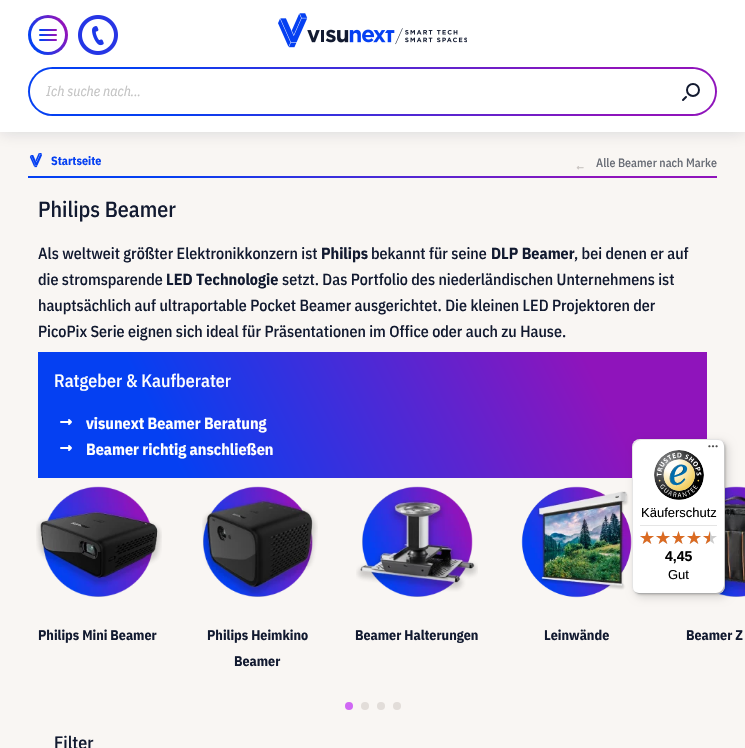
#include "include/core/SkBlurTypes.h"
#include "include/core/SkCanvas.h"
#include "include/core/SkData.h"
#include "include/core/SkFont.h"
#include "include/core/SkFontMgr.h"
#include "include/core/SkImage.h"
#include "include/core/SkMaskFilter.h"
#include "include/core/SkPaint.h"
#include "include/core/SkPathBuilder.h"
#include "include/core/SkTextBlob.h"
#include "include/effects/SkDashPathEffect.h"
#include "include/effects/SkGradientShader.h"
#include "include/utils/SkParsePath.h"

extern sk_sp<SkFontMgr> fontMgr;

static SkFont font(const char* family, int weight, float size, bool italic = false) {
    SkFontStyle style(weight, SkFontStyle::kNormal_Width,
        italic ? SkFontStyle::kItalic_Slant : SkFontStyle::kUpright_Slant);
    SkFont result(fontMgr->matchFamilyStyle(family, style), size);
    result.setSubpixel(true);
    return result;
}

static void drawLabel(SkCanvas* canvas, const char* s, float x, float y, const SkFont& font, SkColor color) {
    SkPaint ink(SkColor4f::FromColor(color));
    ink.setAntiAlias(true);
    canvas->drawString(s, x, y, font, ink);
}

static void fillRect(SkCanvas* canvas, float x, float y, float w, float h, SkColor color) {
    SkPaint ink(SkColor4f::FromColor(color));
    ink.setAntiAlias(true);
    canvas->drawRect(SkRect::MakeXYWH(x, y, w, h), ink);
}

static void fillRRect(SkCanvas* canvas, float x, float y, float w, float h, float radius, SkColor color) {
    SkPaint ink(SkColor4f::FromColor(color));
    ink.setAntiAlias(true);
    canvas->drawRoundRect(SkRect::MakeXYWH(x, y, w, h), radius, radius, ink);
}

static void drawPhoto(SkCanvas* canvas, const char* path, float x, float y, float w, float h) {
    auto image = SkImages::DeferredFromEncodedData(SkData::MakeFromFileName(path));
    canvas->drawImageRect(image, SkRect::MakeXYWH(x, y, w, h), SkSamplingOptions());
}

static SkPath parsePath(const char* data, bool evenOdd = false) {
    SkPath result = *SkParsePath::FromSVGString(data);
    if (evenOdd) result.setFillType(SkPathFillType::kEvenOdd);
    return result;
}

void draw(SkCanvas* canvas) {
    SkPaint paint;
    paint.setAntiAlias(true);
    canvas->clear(0xFFF9F6F3);
    drawPhoto(canvas, "assets/img3.png", 29, 153, 13, 15);
    paint.setColor(0x2607112D);
    paint.setMaskFilter(SkMaskFilter::MakeBlur(kNormal_SkBlurStyle, 8));
    canvas->drawRect(SkRect::MakeXYWH(0, 0, 745, 132), paint);
    paint.setMaskFilter(nullptr);
    fillRect(canvas, 0, 0, 745, 132, 0xFFFFFFFF);
    {
        const SkColor colors[] = {0xFF0540F2, 0xFF8F14BB};
        const float stops[] = {0.2f, 0.83f};
        const SkPoint ends[] = {{24, 47}, {72, 23}};
        paint.setShader(SkGradientShader::MakeLinear(ends, colors, stops, 2, SkTileMode::kClamp));
        paint.setAlpha(255);
    }
    canvas->drawCircle(48, 35, 20, paint);
    paint.setShader(nullptr);
    paint.setColor(0xFFFFFFFF);
    canvas->drawCircle(48, 35, 17, paint);
    {
        const SkColor colors[] = {0xFF0540F2, 0xFF8F14BB};
        const float stops[] = {0.2f, 0.83f};
        const SkPoint ends[] = {{40, 34}, {56, 26}};
        paint.setShader(SkGradientShader::MakeLinear(ends, colors, stops, 2, SkTileMode::kClamp));
        paint.setAlpha(255);
    }
    canvas->drawRoundRect(SkRect::MakeXYWH(39, 29, 18, 2), 1, 1, paint);
    {
        const SkColor colors[] = {0xFF0540F2, 0xFF8F14BB};
        const float stops[] = {0.2f, 0.83f};
        const SkPoint ends[] = {{40, 39}, {56, 31}};
        paint.setShader(SkGradientShader::MakeLinear(ends, colors, stops, 2, SkTileMode::kClamp));
        paint.setAlpha(255);
    }
    canvas->drawRoundRect(SkRect::MakeXYWH(39, 34, 18, 2), 1, 1, paint);
    {
        const SkColor colors[] = {0xFF0540F2, 0xFF8F14BB};
        const float stops[] = {0.2f, 0.83f};
        const SkPoint ends[] = {{40, 44}, {56, 36}};
        paint.setShader(SkGradientShader::MakeLinear(ends, colors, stops, 2, SkTileMode::kClamp));
        paint.setAlpha(255);
    }
    canvas->drawRoundRect(SkRect::MakeXYWH(39, 39, 18, 2), 1, 1, paint);
    drawPhoto(canvas, "assets/img1.png", 78, 15, 40, 40);
    drawPhoto(canvas, "assets/img2.png", 278, 13, 189, 35);
    {
        const SkColor colors[] = {0xFF0540F2, 0xFF8F14BB};
        const float stops[] = {0.2f, 0.83f};
        const SkPoint ends[] = {{86, 233}, {659, -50}};
        paint.setShader(SkGradientShader::MakeLinear(ends, colors, stops, 2, SkTileMode::kClamp));
        paint.setAlpha(255);
    }
    canvas->drawRoundRect(SkRect::MakeXYWH(28, 67, 689, 49), 24.5f, 24.5f, paint);
    paint.setShader(nullptr);
    paint.setColor(0xFFFFFFFF);
    canvas->drawPath(parsePath("M52.5 69H668V114H52.5C40 114 30 104 30 91.5C30 79 40 69 52.5 69Z"), paint);
    SkFont font1 = font("IBM Plex Sans Condensed", 400, 14, true);
    drawLabel(canvas, "Ich suche nach...", 46, 96, font1, 0xFFC3C3C3);
    canvas->drawPath(parsePath("M667 69H692.5C705 69 715 79 715 91.5C715 104 705 114 692.5 114H667Z"), paint);
    paint.setStroke(true);
    paint.setStrokeWidth(2);
    paint.setColor(0xFF121A30);
    canvas->drawCircle(693, 90, 6, paint);
    paint.setStrokeCap(SkPaint::kRound_Cap);
    paint.setStrokeJoin(SkPaint::kRound_Join);
    canvas->drawPath(parsePath("M683 100L686 97"), paint);
    SkFont font2 = font("IBM Plex Sans Condensed", 700, 12);
    drawLabel(canvas, "Startseite", 51, 165, font2, 0xFF0540F2);
    drawPhoto(canvas, "assets/img4.png", 576, 166, 8, 4);
    SkFont font3 = font("IBM Plex Sans Condensed", 500, 12);
    drawLabel(canvas, "Alle Beamer nach Marke", 596, 167, font3, 0xFF686C75);
    paint.setStroke(false);
    {
        const SkColor colors[] = {0xFF0540F2, 0xFF8F14BB};
        const float stops[] = {0.2f, 0.83f};
        const SkPoint ends[] = {{95, 314}, {650, 40}};
        paint.setShader(SkGradientShader::MakeLinear(ends, colors, stops, 2, SkTileMode::kClamp));
        paint.setAlpha(255);
    }
    canvas->drawRect(SkRect::MakeXYWH(28, 176, 689, 2), paint);
    SkFont font4 = font("IBM Plex Sans Condensed", 500, 22);
    drawLabel(canvas, "Philips Beamer", 38, 217, font4, 0xFF121A30);
    SkFont font5 = font("IBM Plex Sans Condensed", 500, 16);
    drawLabel(canvas, "Als weltweit größter Elektronikkonzern ist", 38, 259, font5, 0xFF121A30);
    SkFont font6 = font("IBM Plex Sans Condensed", 700, 16);
    drawLabel(canvas, "Philips", 321, 259, font6, 0xFF121A30);
    drawLabel(canvas, "bekannt für seine", 371, 259, font5, 0xFF121A30);
    drawLabel(canvas, "DLP Beamer", 491, 259, font6, 0xFF121A30);
    drawLabel(canvas, ", bei denen er auf", 574, 259, font5, 0xFF121A30);
    drawLabel(canvas, "die stromsparende", 38, 285, font5, 0xFF121A30);
    drawLabel(canvas, "LED Technologie", 166, 285, font6, 0xFF121A30);
    drawLabel(canvas, "setzt. Das Portfolio des niederländischen Unternehmens ist", 282, 285, font5, 0xFF121A30);
    drawLabel(canvas, "hauptsächlich auf ultraportable Pocket Beamer ausgerichtet. Die kleinen LED Projektoren der", 38, 311, font5, 0xFF121A30);
    drawLabel(canvas, "PicoPix Serie eignen sich ideal für Präsentationen im Office oder auch zu Hause.", 38, 337, font5, 0xFF121A30);
    {
        const SkColor colors[] = {0xFF0540F2, 0xFF8F14BB};
        const float stops[] = {0.2f, 0.83f};
        const SkPoint ends[] = {{78, 560}, {667, 270}};
        paint.setShader(SkGradientShader::MakeLinear(ends, colors, stops, 2, SkTileMode::kClamp));
        paint.setAlpha(255);
    }
    canvas->drawRect(SkRect::MakeXYWH(38, 352, 669, 126), paint);
    SkFont font7 = font("IBM Plex Sans Condensed", 500, 18);
    drawLabel(canvas, "Ratgeber & Kaufberater", 54, 387, font7, 0xFFFFFFFF);
    paint.setStroke(true);
    paint.setShader(nullptr);
    paint.setColor(0xFFFFFFFF);
    canvas->drawPath(parsePath("M61 422H71M71 422L69 420M71 422L69 424"), paint);
    drawLabel(canvas, "visunext Beamer Beratung", 86, 429, font6, 0xFFFFFFFF);
    canvas->drawPath(parsePath("M61 448H71M71 448L69 446M71 448L69 450"), paint);
    drawLabel(canvas, "Beamer richtig anschließen", 86, 455, font6, 0xFFFFFFFF);
    drawPhoto(canvas, "assets/img5.png", 36, 486, 126, 111);
    SkFont font8 = font("IBM Plex Sans Condensed", 700, 14);
    drawLabel(canvas, "Philips Mini Beamer", 38, 640, font8, 0xFF121A30);
    drawPhoto(canvas, "assets/img6.png", 202, 486, 116, 111);
    drawLabel(canvas, "Philips Heimkino", 207, 640, font8, 0xFF121A30);
    drawLabel(canvas, "Beamer", 234, 666, font8, 0xFF121A30);
    drawPhoto(canvas, "assets/img7.png", 356, 486, 122, 111);
    drawLabel(canvas, "Beamer Halterungen", 355, 640, font8, 0xFF121A30);
    drawPhoto(canvas, "assets/img8.png", 521, 486, 111, 112);
    drawLabel(canvas, "Leinwände", 544, 640, font8, 0xFF121A30);
    drawPhoto(canvas, "assets/img9.png", 717, 486, 28, 111);
    drawLabel(canvas, "Beamer Z", 686, 640, font8, 0xFF121A30);
    paint.setStroke(false);
    paint.setColor(0xFFD068F4);
    canvas->drawCircle(349, 706, 4, paint);
    paint.setColor(0xFFE2DDD9);
    canvas->drawCircle(365, 706, 4, paint);
    canvas->drawCircle(381, 706, 4, paint);
    canvas->drawCircle(397, 706, 4, paint);
    drawLabel(canvas, "Filter", 54, 749, font7, 0xFF121A30);
    paint.setColor(0x26000000);
    paint.setMaskFilter(SkMaskFilter::MakeBlur(kNormal_SkBlurStyle, 4));
    canvas->drawRoundRect(SkRect::MakeXYWH(635, 442, 93, 155), 8, 8, paint);
    paint.setMaskFilter(nullptr);
    paint.setMaskFilter(SkMaskFilter::MakeBlur(kNormal_SkBlurStyle, 1));
    canvas->drawRoundRect(SkRect::MakeXYWH(633, 440, 93, 155), 8, 8, paint);
    paint.setMaskFilter(nullptr);
    fillRRect(canvas, 632, 439, 93, 155, 8, 0xFFFFFFFF);
    paint.setColor(0x1A000000);
    canvas->drawPath(parsePath("M641 440H718C720 440 722 441 724 443C722 441 720 439 717 439H640C636 439 632 443 632 447V586C632 589 634 591 636 593C634 591 633 589 633 587V448C633 444 637 440 641 440Z"), paint);
    paint.setColor(0x33000000);
    canvas->drawPath(parsePath("M633 590C635 592 637 594 640 594H717C721 594 725 590 725 586V447C725 444 723 442 721 440C723 442 724 444 724 446V585C724 589 720 593 716 593H639C637 593 635 592 633 590Z"), paint);
    paint.setColor(0x33323232);
    canvas->drawPath(parsePath("M634 591C635 593 638 594 640 594H717C721 594 725 590 725 586V447C725 445 724 442 722 441C723 442 724 444 724 446V585C724 590 721 593 716 593H639C637 593 635 592 634 591Z"), paint);
    paint.setColor(0x4DFFFFFF);
    canvas->drawPath(parsePath("M716 594H717C721 594 725 590 725 586V447C725 445 724 442 722 441C723 442 724 444 724 446V586C724 590 721 594 716 594Z"), paint);
    drawPhoto(canvas, "assets/img10.png", 708, 445, 10, 3);
    drawPhoto(canvas, "assets/img11.png", 654, 450, 50, 50);
    SkFont font9 = font("Liberation Sans", 400, 13);
    drawLabel(canvas, "Käuferschutz", 641, 517, font9, 0xFF000000);
    fillRect(canvas, 640, 525, 77, 1, 0xFFE5E5E5);
    drawPhoto(canvas, "assets/img12.png", 640, 531, 14, 13);
    drawPhoto(canvas, "assets/img12.png", 656, 531, 14, 13);
    drawPhoto(canvas, "assets/img13.png", 672, 531, 13, 13);
    drawPhoto(canvas, "assets/img12.png", 687, 531, 14, 13);
    drawPhoto(canvas, "assets/img12.png", 703, 531, 14, 13);
    drawPhoto(canvas, "assets/img14.png", 640, 531, 14, 13);
    drawPhoto(canvas, "assets/img14.png", 656, 531, 14, 13);
    drawPhoto(canvas, "assets/img15.png", 672, 531, 13, 13);
    drawPhoto(canvas, "assets/img14.png", 687, 531, 14, 13);
    drawPhoto(canvas, "assets/img16.png", 703, 531, 7, 13);
    SkFont font10 = font("Liberation Sans", 700, 14);
    drawLabel(canvas, "4,45", 665, 561, font10, 0xFF000000);
    drawLabel(canvas, "Gut", 668, 579, font9, 0xFF000000);
}
